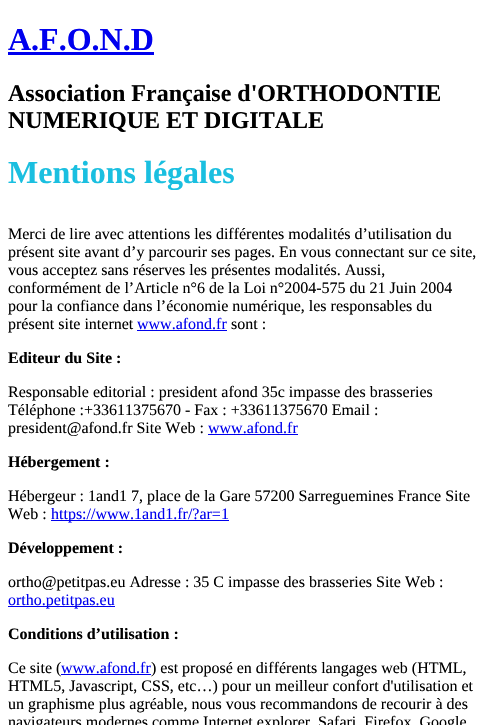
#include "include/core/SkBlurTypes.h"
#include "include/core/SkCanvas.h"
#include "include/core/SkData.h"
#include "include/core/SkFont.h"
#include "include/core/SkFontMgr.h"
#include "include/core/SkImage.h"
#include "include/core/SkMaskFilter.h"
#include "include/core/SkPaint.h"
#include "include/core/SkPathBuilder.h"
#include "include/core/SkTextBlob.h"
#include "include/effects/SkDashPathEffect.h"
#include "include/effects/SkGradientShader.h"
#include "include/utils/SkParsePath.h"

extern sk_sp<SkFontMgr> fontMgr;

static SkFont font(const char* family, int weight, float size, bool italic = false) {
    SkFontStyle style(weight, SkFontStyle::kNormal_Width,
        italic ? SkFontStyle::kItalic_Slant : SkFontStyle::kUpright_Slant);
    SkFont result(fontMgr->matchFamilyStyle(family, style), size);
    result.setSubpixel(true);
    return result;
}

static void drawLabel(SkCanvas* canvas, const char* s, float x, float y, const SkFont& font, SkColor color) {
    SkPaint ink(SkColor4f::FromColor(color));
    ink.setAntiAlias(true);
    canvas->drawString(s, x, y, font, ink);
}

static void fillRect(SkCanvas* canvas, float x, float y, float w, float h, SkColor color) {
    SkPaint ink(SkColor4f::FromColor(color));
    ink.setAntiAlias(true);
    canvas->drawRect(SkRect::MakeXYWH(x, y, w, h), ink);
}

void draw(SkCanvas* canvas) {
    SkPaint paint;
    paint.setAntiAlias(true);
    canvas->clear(0xFFFFFFFF);
    SkFont font1 = font("Liberation Serif", 700, 32);
    drawLabel(canvas, "A.F.O.N.D", 8, 50, font1, 0xFF0000EE);
    fillRect(canvas, 8, 52, 146, 3, 0xFF0000EE);
    SkFont font2 = font("Liberation Serif", 700, 24);
    drawLabel(canvas, "Association Française d'ORTHODONTIE", 8, 101, font2, 0xFF000000);
    drawLabel(canvas, "NUMERIQUE ET DIGITALE", 8, 128, font2, 0xFF000000);
    drawLabel(canvas, "Mentions légales", 8, 183, font1, 0xFF1ABFE0);
    SkFont font3 = font("Liberation Serif", 400, 16);
    drawLabel(canvas, "Merci de lire avec attentions les différentes modalités d’utilisation du", 8, 239, font3, 0xFF000000);
    drawLabel(canvas, "présent site avant d’y parcourir ses pages. En vous connectant sur ce site,", 8, 257, font3, 0xFF000000);
    drawLabel(canvas, "vous acceptez sans réserves les présentes modalités. Aussi,", 8, 275, font3, 0xFF000000);
    drawLabel(canvas, "conformément de l’Article n°6 de la Loi n°2004-575 du 21 Juin 2004", 8, 293, font3, 0xFF000000);
    drawLabel(canvas, "pour la confiance dans l’économie numérique, les responsables du", 8, 311, font3, 0xFF000000);
    drawLabel(canvas, "présent site internet", 8, 329, font3, 0xFF000000);
    drawLabel(canvas, "www.afond.fr", 137, 329, font3, 0xFF0000EE);
    fillRect(canvas, 137, 330, 90, 1, 0xFF0000EE);
    drawLabel(canvas, "sont :", 231, 329, font3, 0xFF000000);
    SkFont font4 = font("Liberation Serif", 700, 16);
    drawLabel(canvas, "Editeur du Site :", 8, 363, font4, 0xFF000000);
    drawLabel(canvas, "Responsable editorial : president afond 35c impasse des brasseries", 8, 397, font3, 0xFF000000);
    drawLabel(canvas, "Téléphone :+33611375670 - Fax : +33611375670 Email :", 8, 415, font3, 0xFF000000);
    drawLabel(canvas, "president@afond.fr Site Web :", 8, 433, font3, 0xFF000000);
    drawLabel(canvas, "www.afond.fr", 208, 433, font3, 0xFF0000EE);
    fillRect(canvas, 208, 434, 90, 1, 0xFF0000EE);
    drawLabel(canvas, "Hébergement :", 8, 467, font4, 0xFF000000);
    drawLabel(canvas, "Hébergeur : 1and1 7, place de la Gare 57200 Sarreguemines France Site", 8, 501, font3, 0xFF000000);
    drawLabel(canvas, "Web :", 8, 519, font3, 0xFF000000);
    fillRect(canvas, 51, 520, 178, 1, 0xFF0000EE);
    drawLabel(canvas, "https://www.1and1.fr/?ar=1", 51, 519, font3, 0xFF0000EE);
    drawLabel(canvas, "Développement :", 8, 553, font4, 0xFF000000);
    drawLabel(canvas, "ortho@petitpas.eu Adresse : 35 C impasse des brasseries Site Web :", 8, 587, font3, 0xFF000000);
    fillRect(canvas, 8, 606, 107, 1, 0xFF0000EE);
    drawLabel(canvas, "ortho.petitpas.eu", 8, 605, font3, 0xFF0000EE);
    drawLabel(canvas, "Conditions d’utilisation :", 8, 639, font4, 0xFF000000);
    drawLabel(canvas, "Ce site (", 8, 673, font3, 0xFF000000);
    drawLabel(canvas, "www.afond.fr", 61, 673, font3, 0xFF0000EE);
    fillRect(canvas, 61, 674, 90, 1, 0xFF0000EE);
    drawLabel(canvas, ") est proposé en différents langages web (HTML,", 151, 673, font3, 0xFF000000);
    drawLabel(canvas, "HTML5, Javascript, CSS, etc…) pour un meilleur confort d'utilisation et", 8, 691, font3, 0xFF000000);
    drawLabel(canvas, "un graphisme plus agréable, nous vous recommandons de recourir à des", 8, 709, font3, 0xFF000000);
    drawLabel(canvas, "navigateurs modernes comme Internet explorer, Safari, Firefox, Google", 8, 727, font3, 0xFF000000);
}
